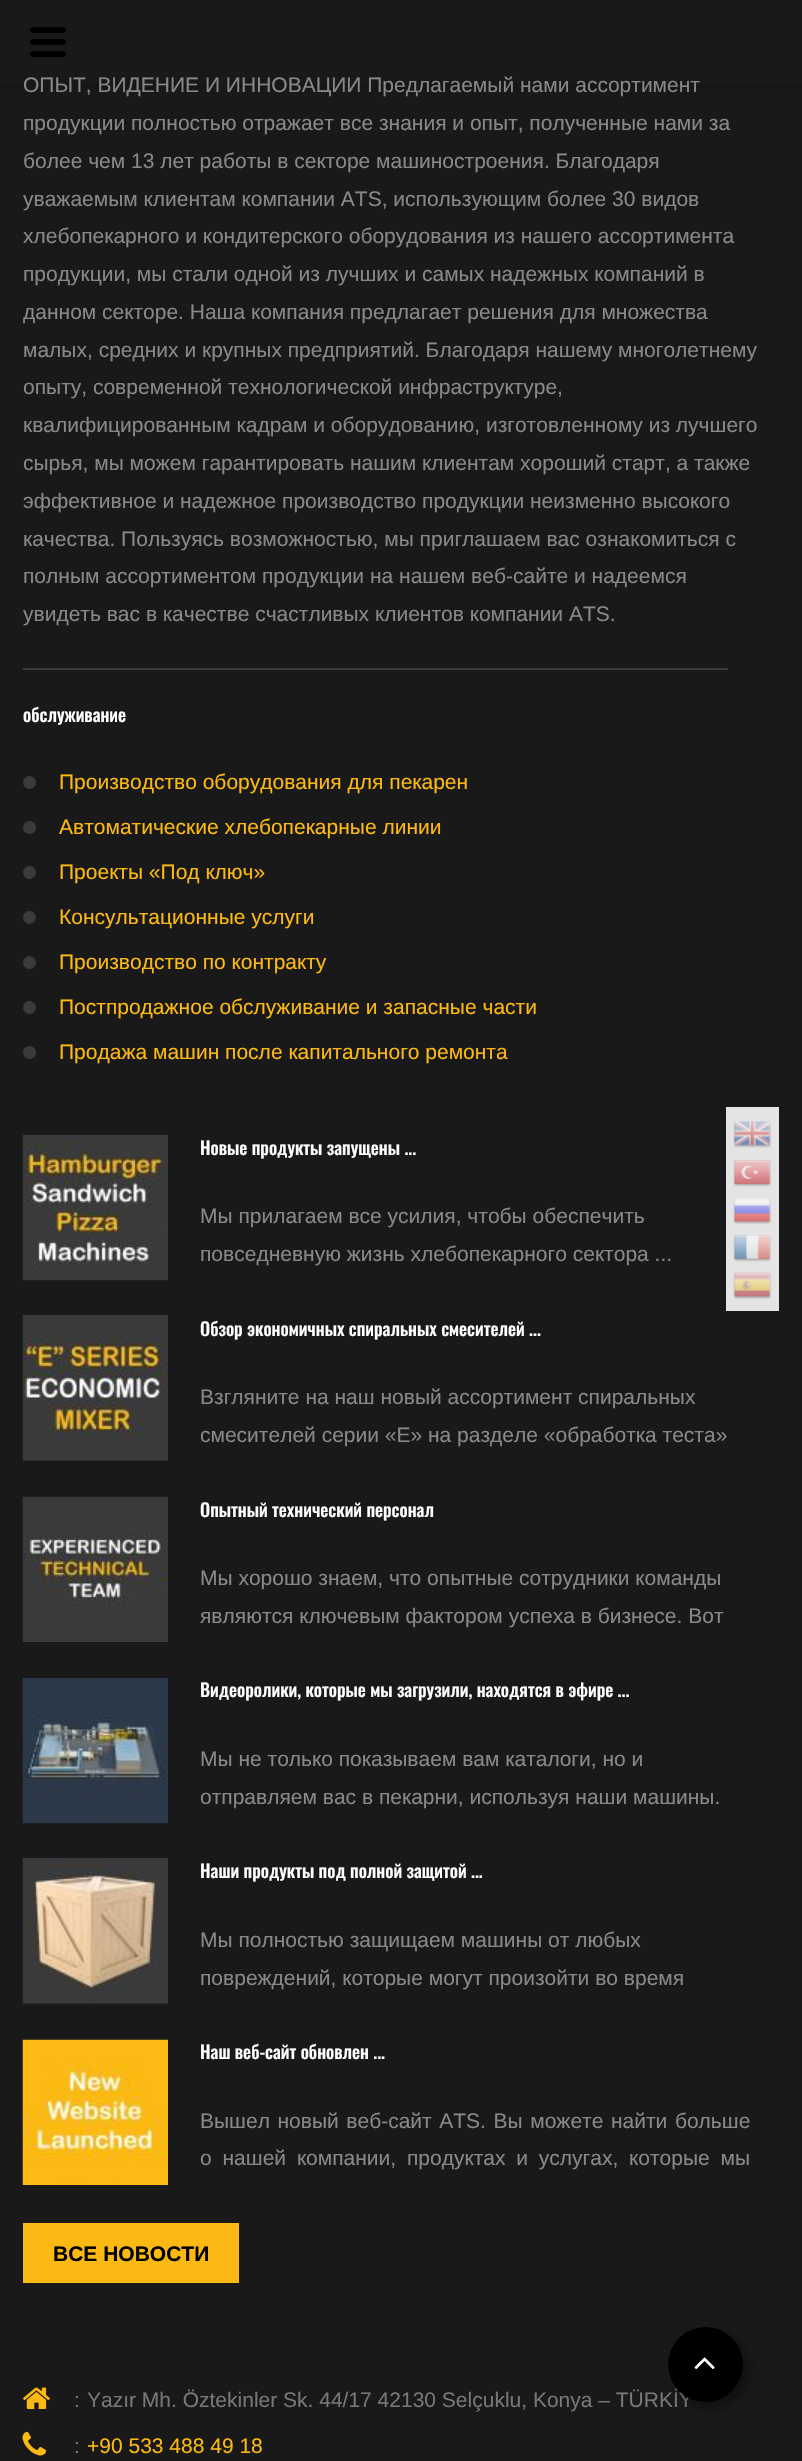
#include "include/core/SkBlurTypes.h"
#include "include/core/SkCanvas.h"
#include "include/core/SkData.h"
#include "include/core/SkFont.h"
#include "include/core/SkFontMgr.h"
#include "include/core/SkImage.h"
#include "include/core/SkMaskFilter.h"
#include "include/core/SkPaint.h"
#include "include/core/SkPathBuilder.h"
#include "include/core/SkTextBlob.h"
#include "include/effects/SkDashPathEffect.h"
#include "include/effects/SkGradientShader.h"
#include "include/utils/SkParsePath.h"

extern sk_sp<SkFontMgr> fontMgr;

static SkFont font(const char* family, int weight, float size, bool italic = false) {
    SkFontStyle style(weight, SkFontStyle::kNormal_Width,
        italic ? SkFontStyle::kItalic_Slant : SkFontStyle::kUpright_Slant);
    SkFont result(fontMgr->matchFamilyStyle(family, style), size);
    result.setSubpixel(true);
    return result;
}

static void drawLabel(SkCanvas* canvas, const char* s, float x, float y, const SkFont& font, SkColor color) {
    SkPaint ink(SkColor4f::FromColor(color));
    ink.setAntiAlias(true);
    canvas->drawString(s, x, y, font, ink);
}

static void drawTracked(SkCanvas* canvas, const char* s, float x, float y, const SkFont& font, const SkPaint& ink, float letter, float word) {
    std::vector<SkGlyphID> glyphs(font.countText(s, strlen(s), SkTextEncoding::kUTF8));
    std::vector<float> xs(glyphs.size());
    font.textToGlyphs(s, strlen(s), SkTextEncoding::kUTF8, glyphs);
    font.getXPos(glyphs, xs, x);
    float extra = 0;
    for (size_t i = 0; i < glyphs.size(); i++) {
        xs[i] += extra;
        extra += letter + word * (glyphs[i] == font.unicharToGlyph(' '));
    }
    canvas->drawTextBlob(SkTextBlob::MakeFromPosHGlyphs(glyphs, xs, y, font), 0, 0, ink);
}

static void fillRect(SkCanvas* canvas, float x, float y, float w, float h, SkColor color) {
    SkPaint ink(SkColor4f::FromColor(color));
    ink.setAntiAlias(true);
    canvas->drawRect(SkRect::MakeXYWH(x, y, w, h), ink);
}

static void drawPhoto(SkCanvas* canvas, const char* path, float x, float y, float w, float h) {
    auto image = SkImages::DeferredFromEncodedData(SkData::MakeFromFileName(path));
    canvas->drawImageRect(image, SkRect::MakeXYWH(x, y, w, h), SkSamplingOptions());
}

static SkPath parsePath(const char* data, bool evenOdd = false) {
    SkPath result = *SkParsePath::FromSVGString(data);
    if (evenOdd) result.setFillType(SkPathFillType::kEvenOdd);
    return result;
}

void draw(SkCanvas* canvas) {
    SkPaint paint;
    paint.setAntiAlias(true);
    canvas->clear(0xFF191919);
    canvas->save();
    canvas->clipRect(SkRect::MakeXYWH(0, 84, 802, 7));
    paint.setColor(0x1A000000);
    paint.setMaskFilter(SkMaskFilter::MakeBlur(kNormal_SkBlurStyle, 2));
    canvas->drawRect(SkRect::MakeXYWH(0, 5, 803, 84), paint);
    paint.setMaskFilter(nullptr);
    canvas->restore();
    paint.setColor(0xFF000000);
    canvas->drawPath(parsePath("M63 45H33C31.5 45 30 43.5 30 42C30 40.5 31.5 39 33 39H63C64.5 39 66 40.5 66 42C66 43.5 64.5 45 63 45ZM63 57H33C31.5 57 30 55.5 30 54C30 52.5 31.5 51 33 51H63C64.5 51 66 52.5 66 54C66 55.5 64.5 57 63 57ZM63 33H33C31.5 33 30 31.5 30 30C30 28.5 31.5 27 33 27H63C64.5 27 66 28.5 66 30C66 31.5 64.5 33 63 33Z"), paint);
    SkFont font1 = font("Liberation Sans", 400, 21);
    drawLabel(canvas, "ОПЫТ, ВИДЕНИЕ И ИННОВАЦИИ Предлагаемый нами ассортимент", 23, 92, font1, 0xFF888888);
    drawLabel(canvas, "продукции полностью отражает все знания и опыт, полученные нами за", 23, 130, font1, 0xFF888888);
    drawLabel(canvas, "более чем 13 лет работы в секторе машиностроения. Благодаря", 23, 168, font1, 0xFF888888);
    drawLabel(canvas, "уважаемым клиентам компании ATS, использующим более 30 видов", 23, 206, font1, 0xFF888888);
    drawLabel(canvas, "хлебопекарного и кондитерского оборудования из нашего ассортимента", 23, 243, font1, 0xFF888888);
    drawLabel(canvas, "продукции, мы стали одной из лучших и самых надежных компаний в", 23, 281, font1, 0xFF888888);
    drawLabel(canvas, "данном секторе. Наша компания предлагает решения для множества", 23, 319, font1, 0xFF888888);
    drawLabel(canvas, "малых, средних и крупных предприятий. Благодаря нашему многолетнему", 23, 357, font1, 0xFF888888);
    drawLabel(canvas, "опыту, современной технологической инфраструктуре,", 23, 394, font1, 0xFF888888);
    drawLabel(canvas, "квалифицированным кадрам и оборудованию, изготовленному из лучшего", 23, 432, font1, 0xFF888888);
    drawLabel(canvas, "сырья, мы можем гарантировать нашим клиентам хороший старт, а также", 23, 470, font1, 0xFF888888);
    drawLabel(canvas, "эффективное и надежное производство продукции неизменно высокого", 23, 508, font1, 0xFF888888);
    drawLabel(canvas, "качества. Пользуясь возможностью, мы приглашаем вас ознакомиться с", 23, 546, font1, 0xFF888888);
    drawLabel(canvas, "полным ассортиментом продукции на нашем веб-сайте и надеемся", 23, 583, font1, 0xFF888888);
    drawLabel(canvas, "увидеть вас в качестве счастливых клиентов компании ATS.", 23, 621, font1, 0xFF888888);
    fillRect(canvas, 23, 668, 705, 2, 0xFF3B3B3B);
    SkFont font2 = font("Oswald", 500, 18);
    drawLabel(canvas, "обслуживание", 23, 722, font2, 0xFFFFFFFF);
    paint.setColor(0xFF3B3B3B);
    canvas->drawCircle(29.5f, 782.5f, 6.5f, paint);
    drawLabel(canvas, "Производство оборудования для пекарен", 59, 789, font1, 0xFFFDB913);
    canvas->drawCircle(29.5f, 827.5f, 6.5f, paint);
    drawLabel(canvas, "Автоматические хлебопекарные линии", 59, 834, font1, 0xFFFDB913);
    canvas->drawCircle(29.5f, 872.5f, 6.5f, paint);
    drawLabel(canvas, "Проекты «Под ключ»", 59, 879, font1, 0xFFFDB913);
    canvas->drawCircle(29.5f, 917.5f, 6.5f, paint);
    drawLabel(canvas, "Консультационные услуги", 59, 924, font1, 0xFFFDB913);
    canvas->drawCircle(29.5f, 962.5f, 6.5f, paint);
    drawLabel(canvas, "Производство по контракту", 59, 969, font1, 0xFFFDB913);
    canvas->drawCircle(29.5f, 1007.5f, 6.5f, paint);
    drawLabel(canvas, "Постпродажное обслуживание и запасные части", 59, 1014, font1, 0xFFFDB913);
    canvas->drawCircle(29.5f, 1052.5f, 6.5f, paint);
    drawLabel(canvas, "Продажа машин после капитального ремонта", 59, 1059, font1, 0xFFFDB913);
    drawPhoto(canvas, "assets/img1.png", 22, 1135, 146, 146);
    drawLabel(canvas, "Новые продукты запущены ...", 200, 1155, font2, 0xFFFFFFFF);
    drawLabel(canvas, "Мы прилагаем все усилия, чтобы обеспечить", 200, 1223, font1, 0xFF888888);
    drawLabel(canvas, "повседневную жизнь хлебопекарного сектора ...", 200, 1261, font1, 0xFF888888);
    drawPhoto(canvas, "assets/img2.png", 22, 1315, 146, 146);
    drawLabel(canvas, "Обзор экономичных спиральных смесителей ...", 200, 1336, font2, 0xFFFFFFFF);
    drawLabel(canvas, "Взгляните на наш новый ассортимент спиральных", 200, 1404, font1, 0xFF888888);
    drawLabel(canvas, "смесителей серии «E» на разделе «обработка теста»", 200, 1442, font1, 0xFF888888);
    drawPhoto(canvas, "assets/img3.png", 22, 1496, 146, 146);
    drawLabel(canvas, "Опытный технический персонал", 200, 1517, font2, 0xFFFFFFFF);
    drawLabel(canvas, "Мы хорошо знаем, что опытные сотрудники команды", 200, 1585, font1, 0xFF888888);
    drawLabel(canvas, "являются ключевым фактором успеха в бизнесе. Вот", 200, 1623, font1, 0xFF888888);
    drawPhoto(canvas, "assets/img4.png", 22, 1678, 146, 146);
    drawLabel(canvas, "Видеоролики, которые мы загрузили, находятся в эфире ...", 200, 1697, font2, 0xFFFFFFFF);
    drawLabel(canvas, "Мы не только показываем вам каталоги, но и", 200, 1766, font1, 0xFF888888);
    drawLabel(canvas, "отправляем вас в пекарни, используя наши машины.", 200, 1804, font1, 0xFF888888);
    drawPhoto(canvas, "assets/img5.png", 22, 1858, 146, 146);
    drawLabel(canvas, "Наши продукты под полной защитой ...", 200, 1878, font2, 0xFFFFFFFF);
    drawLabel(canvas, "Мы полностью защищаем машины от любых", 200, 1947, font1, 0xFF888888);
    drawLabel(canvas, "повреждений, которые могут произойти во время", 200, 1985, font1, 0xFF888888);
    drawPhoto(canvas, "assets/img6.png", 22, 2039, 146, 146);
    drawLabel(canvas, "Наш веб-сайт обновлен ...", 200, 2059, font2, 0xFFFFFFFF);
    paint.setColor(0xFF888888);
    drawTracked(canvas, "Вышел новый веб-сайт ATS. Вы можете найти больше", 200, 2128, font1, paint, 0, 1.75f);
    drawTracked(canvas, "о нашей компании, продуктах и услугах, которые мы", 200, 2165, font1, paint, 0, 5);
    fillRect(canvas, 23, 2223, 216, 60, 0xFFFDB913);
    SkFont font3 = font("Liberation Sans", 700, 21);
    drawLabel(canvas, "ВСЕ НОВОСТИ", 53, 2261, font3, 0xFF000000);
    drawPhoto(canvas, "assets/img7.png", 23, 2387, 27, 22);
    drawLabel(canvas, ":", 74, 2407, font1, 0xFF777777);
    drawLabel(canvas, "Yazır Mh. Öztekinler Sk. 44/17 42130 Selçuklu, Konya – TÜRKİY", 87, 2407, font1, 0xFF777777);
    drawPhoto(canvas, "assets/img8.png", 22, 2431, 25, 25);
    drawLabel(canvas, ":", 74, 2453, font1, 0xFF777777);
    drawLabel(canvas, "+90 533 488 49 18", 87, 2453, font1, 0xFFFDB913);
    fillRect(canvas, 726, 1107, 53, 204, 0xFFE4E4E4);
    drawPhoto(canvas, "assets/img9.png", 733, 1121, 38, 27);
    drawPhoto(canvas, "assets/img10.png", 733, 1160, 38, 27);
    drawPhoto(canvas, "assets/img11.png", 733, 1198, 38, 26);
    drawPhoto(canvas, "assets/img12.png", 733, 1235, 38, 27);
    drawPhoto(canvas, "assets/img13.png", 733, 1272, 38, 27);
    paint.setColor(0x66000000);
    paint.setMaskFilter(SkMaskFilter::MakeBlur(kNormal_SkBlurStyle, 6));
    canvas->drawRoundRect(SkRect::MakeXYWH(674, 2333, 75, 75), 37.5f, 37.5f, paint);
    paint.setMaskFilter(nullptr);
    paint.setColor(0xFF000000);
    canvas->drawCircle(705.5f, 2364.5f, 37.5f, paint);
    drawPhoto(canvas, "assets/img14.png", 694, 2357, 21, 12);
}
